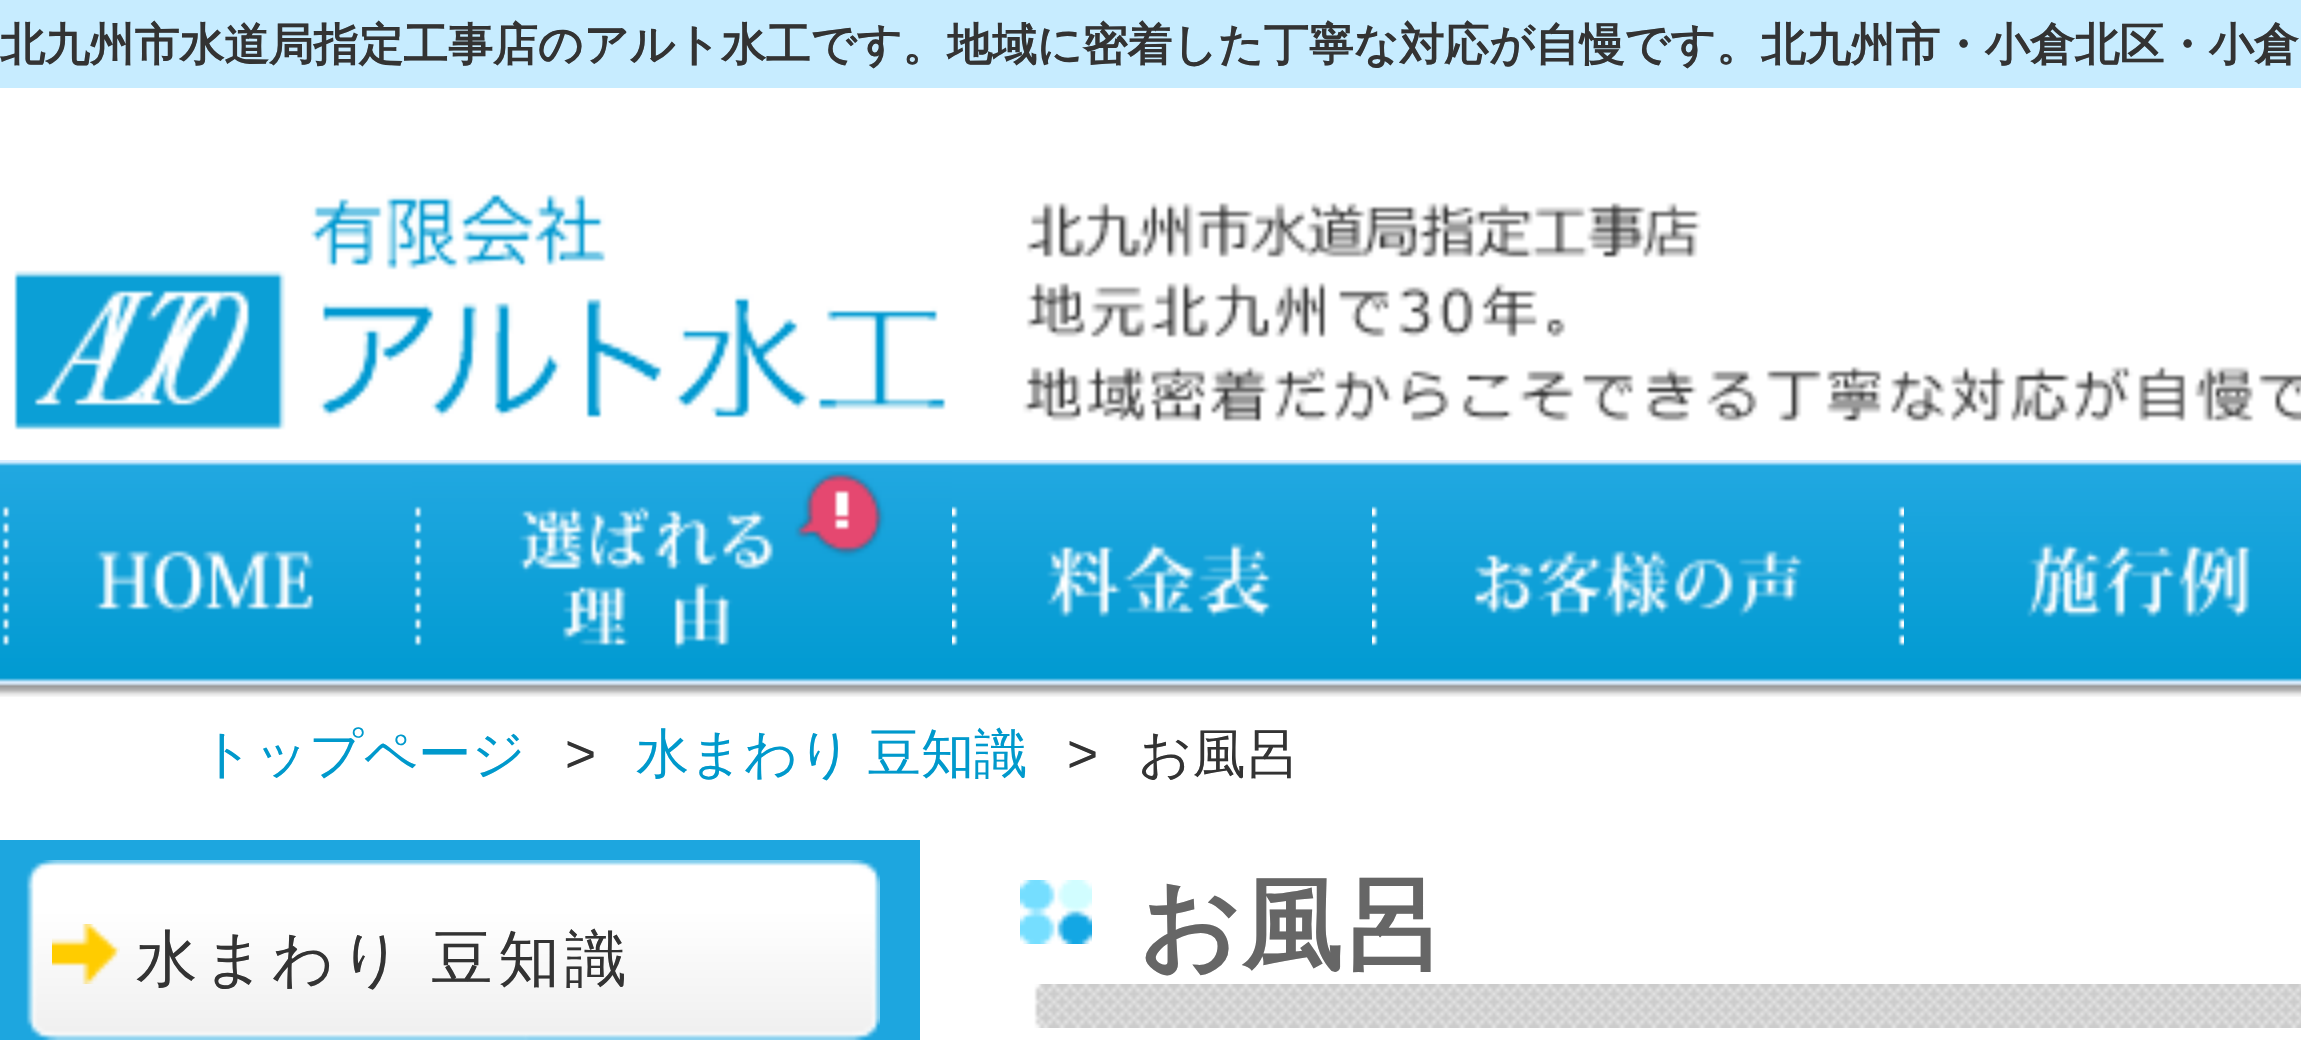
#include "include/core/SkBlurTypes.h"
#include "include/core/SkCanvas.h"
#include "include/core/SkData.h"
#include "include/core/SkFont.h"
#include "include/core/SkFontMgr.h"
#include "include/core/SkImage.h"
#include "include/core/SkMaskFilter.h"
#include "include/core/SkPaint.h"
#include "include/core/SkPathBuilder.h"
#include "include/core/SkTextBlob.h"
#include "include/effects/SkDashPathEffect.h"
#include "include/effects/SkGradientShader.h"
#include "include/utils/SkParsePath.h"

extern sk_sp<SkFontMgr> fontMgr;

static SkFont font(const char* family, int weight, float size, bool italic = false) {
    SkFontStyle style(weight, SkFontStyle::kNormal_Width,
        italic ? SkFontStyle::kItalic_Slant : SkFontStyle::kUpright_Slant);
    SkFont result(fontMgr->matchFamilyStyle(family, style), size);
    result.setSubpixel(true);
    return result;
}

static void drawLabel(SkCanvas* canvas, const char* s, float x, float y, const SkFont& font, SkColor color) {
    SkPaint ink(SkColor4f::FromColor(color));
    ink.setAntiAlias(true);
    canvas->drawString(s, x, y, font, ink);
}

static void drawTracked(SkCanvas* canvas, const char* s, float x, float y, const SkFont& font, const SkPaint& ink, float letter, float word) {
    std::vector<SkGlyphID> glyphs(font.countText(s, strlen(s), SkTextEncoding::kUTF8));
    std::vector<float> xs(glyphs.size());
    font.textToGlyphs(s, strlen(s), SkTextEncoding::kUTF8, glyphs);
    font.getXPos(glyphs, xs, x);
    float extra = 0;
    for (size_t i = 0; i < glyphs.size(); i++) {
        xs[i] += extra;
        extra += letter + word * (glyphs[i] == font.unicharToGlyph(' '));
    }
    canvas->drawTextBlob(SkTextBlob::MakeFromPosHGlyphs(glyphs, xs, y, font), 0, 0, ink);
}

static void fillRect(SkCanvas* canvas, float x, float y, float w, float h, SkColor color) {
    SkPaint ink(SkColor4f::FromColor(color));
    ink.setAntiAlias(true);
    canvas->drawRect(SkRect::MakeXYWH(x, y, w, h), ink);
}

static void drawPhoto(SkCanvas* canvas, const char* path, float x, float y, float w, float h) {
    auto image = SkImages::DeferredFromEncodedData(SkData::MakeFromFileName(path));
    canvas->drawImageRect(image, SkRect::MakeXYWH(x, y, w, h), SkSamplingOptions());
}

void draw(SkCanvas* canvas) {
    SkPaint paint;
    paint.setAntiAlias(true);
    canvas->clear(0xFFFFFFFF);
    fillRect(canvas, 0, 0, 2301, 88, 0xFFC7ECFF);
    SkFont font1 = font("WenQuanYi Zen Hei", 700, 44.8f);
    drawLabel(canvas, "北九州市水道局指定工事店のアルト水工です。地域に密着した丁寧な対応が自慢です。北九州市・小倉北区・小倉", 0, 60, font1, 0xFF333333);
    drawPhoto(canvas, "assets/img1.png", 14, 194, 932, 236);
    drawPhoto(canvas, "assets/img2.png", 1022, 202, 1279, 220);
    drawPhoto(canvas, "assets/img3.png", 0, 460, 2301, 237);
    drawPhoto(canvas, "assets/img4.png", 0, 506, 412, 180);
    drawPhoto(canvas, "assets/img5.png", 412, 471, 540, 215);
    drawPhoto(canvas, "assets/img6.png", 952, 506, 420, 180);
    drawPhoto(canvas, "assets/img7.png", 1372, 506, 532, 180);
    drawPhoto(canvas, "assets/img8.png", 1904, 542, 397, 144);
    SkFont font2 = font("WenQuanYi Zen Hei", 500, 53.25f);
    drawLabel(canvas, "トップページ", 200, 772, font2, 0xFF0099CC);
    SkFont font3 = font("Liberation Sans", 400, 53.25f);
    paint.setColor(0xFF333333);
    drawTracked(canvas, ">", 565, 772, font3, paint, 40, 0);
    paint.setColor(0xFF0099CC);
    drawTracked(canvas, "水まわり 豆知識", 636, 772, font2, paint, 0, -1);
    paint.setColor(0xFF333333);
    drawTracked(canvas, ">", 1067, 772, font3, paint, 40, 0);
    drawLabel(canvas, "お風呂", 1138, 772, font2, 0xFF333333);
    fillRect(canvas, 0, 840, 920, 200, 0xFF1DA6DF);
    drawPhoto(canvas, "assets/img9.png", 26, 860, 854, 180);
    drawPhoto(canvas, "assets/img10.png", 52, 924, 68, 60);
    SkFont font4 = font("WenQuanYi Zen Hei", 500, 61.5f);
    drawTracked(canvas, "水まわり 豆知識", 136, 980, font4, paint, 5.5f, -1);
    drawPhoto(canvas, "assets/img11.png", 1034, 984, 1267, 44);
    drawPhoto(canvas, "assets/img12.png", 1020, 880, 72, 64);
    SkFont font5 = font("WenQuanYi Zen Hei", 700, 101);
    drawLabel(canvas, "お風呂", 1138, 960, font5, 0xFF666666);
}
